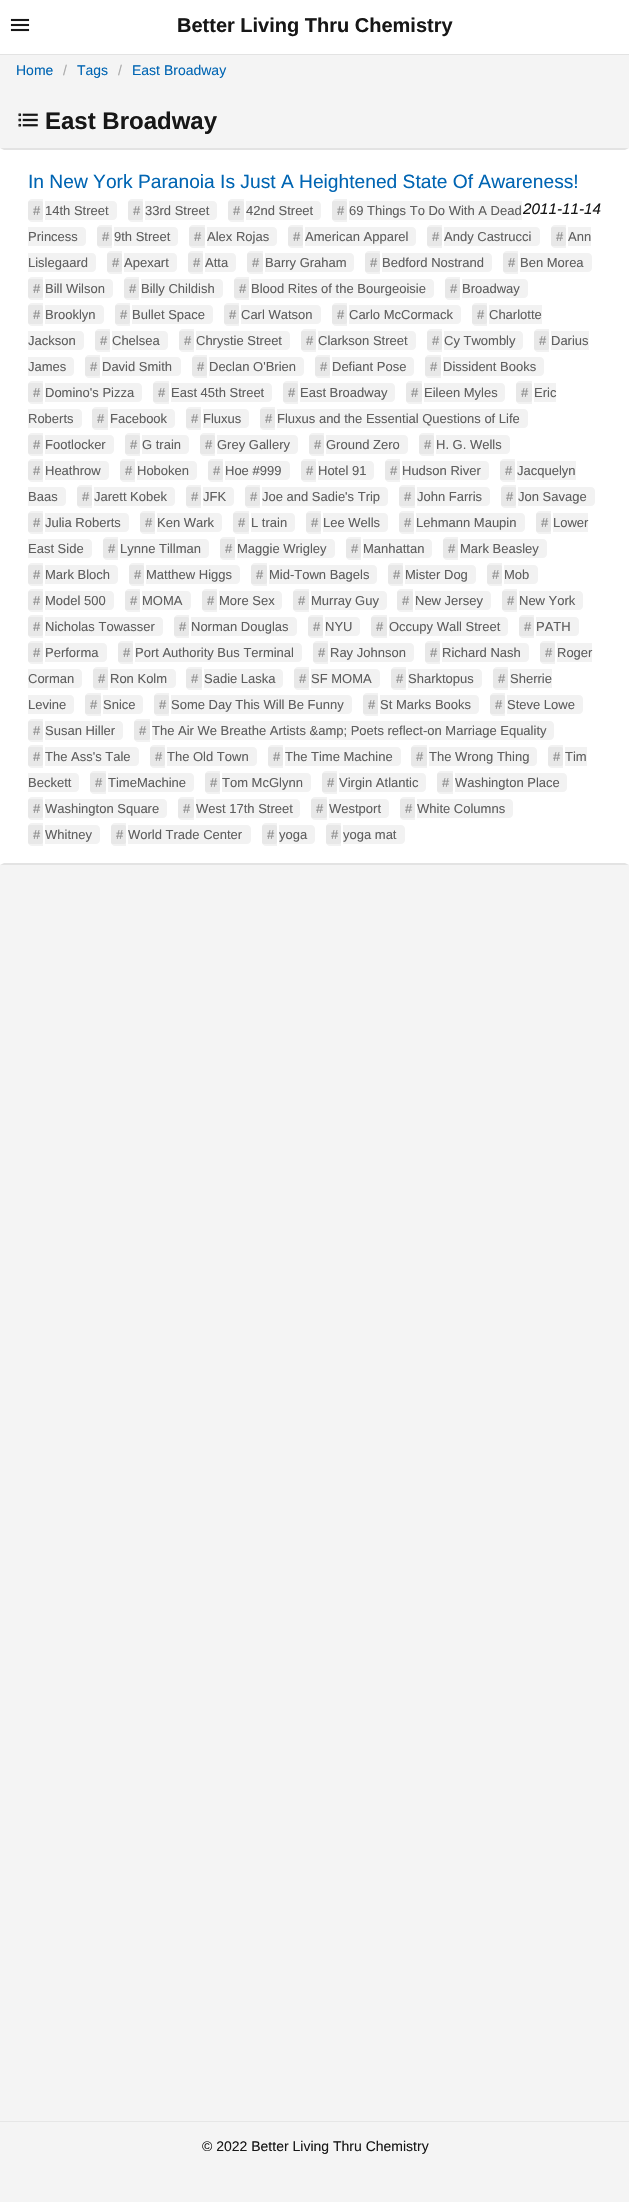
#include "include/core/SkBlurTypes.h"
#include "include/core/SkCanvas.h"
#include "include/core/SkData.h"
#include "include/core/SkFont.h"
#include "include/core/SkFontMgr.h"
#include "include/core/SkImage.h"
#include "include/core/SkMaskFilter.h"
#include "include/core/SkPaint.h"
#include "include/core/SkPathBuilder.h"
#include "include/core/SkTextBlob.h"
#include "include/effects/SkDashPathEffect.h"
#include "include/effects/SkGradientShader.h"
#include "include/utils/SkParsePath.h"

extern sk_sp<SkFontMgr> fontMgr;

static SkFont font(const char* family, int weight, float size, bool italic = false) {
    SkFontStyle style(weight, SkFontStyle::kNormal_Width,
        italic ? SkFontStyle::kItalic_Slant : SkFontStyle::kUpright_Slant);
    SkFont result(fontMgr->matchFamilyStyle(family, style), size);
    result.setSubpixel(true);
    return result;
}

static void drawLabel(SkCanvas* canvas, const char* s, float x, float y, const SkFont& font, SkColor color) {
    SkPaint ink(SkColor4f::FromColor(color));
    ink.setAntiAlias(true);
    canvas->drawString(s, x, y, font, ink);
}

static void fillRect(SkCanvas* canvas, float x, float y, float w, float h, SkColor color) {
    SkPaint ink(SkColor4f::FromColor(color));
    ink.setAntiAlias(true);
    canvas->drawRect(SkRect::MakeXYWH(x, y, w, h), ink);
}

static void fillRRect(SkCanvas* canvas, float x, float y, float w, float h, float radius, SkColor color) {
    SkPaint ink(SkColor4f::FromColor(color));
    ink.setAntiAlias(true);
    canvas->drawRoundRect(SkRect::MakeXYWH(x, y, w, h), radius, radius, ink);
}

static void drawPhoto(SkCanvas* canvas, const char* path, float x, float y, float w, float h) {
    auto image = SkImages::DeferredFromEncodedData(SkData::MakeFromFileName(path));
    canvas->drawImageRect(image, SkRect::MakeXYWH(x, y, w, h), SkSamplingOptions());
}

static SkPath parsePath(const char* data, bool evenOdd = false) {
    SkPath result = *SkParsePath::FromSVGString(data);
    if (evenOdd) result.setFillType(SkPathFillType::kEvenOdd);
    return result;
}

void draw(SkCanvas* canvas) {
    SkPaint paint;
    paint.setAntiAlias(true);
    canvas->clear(0xFFF4F4F4);
    fillRect(canvas, 0, 0, 629, 54, 0xFFFFFFFF);
    fillRect(canvas, 0, 54, 629, 1, 0xFFE3E3E3);
    drawPhoto(canvas, "assets/img1.png", 10, 18, 20, 14);
    SkFont font1 = font("Liberation Sans", 700, 20);
    drawLabel(canvas, "Better Living Thru Chemistry", 177, 32, font1, 0xFF171717);
    SkFont font2 = font("Liberation Sans", 400, 14);
    drawLabel(canvas, "Home", 16, 75, font2, 0xFF0065B3);
    drawLabel(canvas, "/", 63, 75, font2, 0xFFABABAB);
    drawLabel(canvas, "Tags", 77, 75, font2, 0xFF0065B3);
    drawLabel(canvas, "/", 118, 75, font2, 0xFFABABAB);
    drawLabel(canvas, "East Broadway", 132, 75, font2, 0xFF0065B3);
    drawPhoto(canvas, "assets/img2.png", 18, 113, 20, 14);
    SkFont font3 = font("Liberation Sans", 700, 24);
    drawLabel(canvas, "East Broadway", 45, 129, font3, 0xFF171717);
    fillRect(canvas, 0, 148, 629, 717, 0xFFFFFFFF);
    paint.setColor(0xFFE3E3E3);
    canvas->drawPath(parsePath("M0 148H629L625 150H4Z"), paint);
    canvas->drawPath(parsePath("M629 865H0L4 863H625Z"), paint);
    SkFont font4 = font("Liberation Sans", 400, 19.2f);
    drawLabel(canvas, "In New York Paranoia Is Just A Heightened State Of Awareness!", 28, 188, font4, 0xFF0065B3);
    SkFont font5 = font("Liberation Sans", 400, 15.25f, true);
    drawLabel(canvas, "2011-11-14", 523, 214, font5, 0xFF171717);
    paint.setColor(0xFFF2F2F2);
    canvas->drawPath(parsePath("M32 199H43V222H32C30 222 28 220 28 218V203C28 201 30 199 32 199Z"), paint);
    fillRRect(canvas, 28, 201, 15, 19, 2, 0xFFE8E8E8);
    SkFont font6 = font("Liberation Sans", 400, 13);
    drawLabel(canvas, "#", 33, 215, font6, 0xFF8A8A8A);
    canvas->drawPath(parsePath("M45 201H113C115 201 117 203 117 205V216C117 218 115 220 113 220H45Z"), paint);
    drawLabel(canvas, "14th Street", 45, 215, font6, 0xFF5E5E5E);
    canvas->drawPath(parsePath("M132 199H143V222H132C130 222 128 220 128 218V203C128 201 130 199 132 199Z"), paint);
    fillRRect(canvas, 128, 201, 15, 19, 2, 0xFFE8E8E8);
    drawLabel(canvas, "#", 133, 215, font6, 0xFF8A8A8A);
    canvas->drawPath(parsePath("M145 201H213C215 201 217 203 217 205V216C217 218 215 220 213 220H145Z"), paint);
    drawLabel(canvas, "33rd Street", 145, 215, font6, 0xFF5E5E5E);
    canvas->drawPath(parsePath("M232 199H244V222H232C230 222 228 220 228 218V203C228 201 230 199 232 199Z"), paint);
    fillRRect(canvas, 228, 201, 16, 19, 2, 0xFFE8E8E8);
    drawLabel(canvas, "#", 233, 215, font6, 0xFF8A8A8A);
    canvas->drawPath(parsePath("M246 201H317C319 201 321 203 321 205V216C321 218 319 220 317 220H246Z"), paint);
    drawLabel(canvas, "42nd Street", 246, 215, font6, 0xFF5E5E5E);
    canvas->drawPath(parsePath("M336 199H347V222H336C334 222 332 220 332 218V203C332 201 334 199 336 199Z"), paint);
    fillRRect(canvas, 332, 201, 15, 19, 2, 0xFFE8E8E8);
    drawLabel(canvas, "#", 337, 215, font6, 0xFF8A8A8A);
    fillRect(canvas, 349, 201, 173, 19, 0xFFF2F2F2);
    drawLabel(canvas, "69 Things To Do With A Dead", 349, 215, font6, 0xFF5E5E5E);
    canvas->drawPath(parsePath("M28 227H82C84 227 86 229 86 231V242C86 244 84 246 82 246H28Z"), paint);
    drawLabel(canvas, "Princess", 28, 241, font6, 0xFF5E5E5E);
    canvas->drawPath(parsePath("M101 225H112V248H101C99 248 97 246 97 244V229C97 227 99 225 101 225Z"), paint);
    fillRRect(canvas, 97, 227, 15, 19, 2, 0xFFE8E8E8);
    drawLabel(canvas, "#", 102, 241, font6, 0xFF8A8A8A);
    canvas->drawPath(parsePath("M114 227H174C176 227 178 229 178 231V242C178 244 176 246 174 246H114Z"), paint);
    drawLabel(canvas, "9th Street", 114, 241, font6, 0xFF5E5E5E);
    canvas->drawPath(parsePath("M193 225H205V248H193C191 248 189 246 189 244V229C189 227 191 225 193 225Z"), paint);
    fillRRect(canvas, 189, 227, 16, 19, 2, 0xFFE8E8E8);
    drawLabel(canvas, "#", 194, 241, font6, 0xFF8A8A8A);
    canvas->drawPath(parsePath("M207 227H273C275 227 277 229 277 231V242C277 244 275 246 273 246H207Z"), paint);
    drawLabel(canvas, "Alex Rojas", 207, 241, font6, 0xFF5E5E5E);
    canvas->drawPath(parsePath("M292 225H303V248H292C290 248 288 246 288 244V229C288 227 290 225 292 225Z"), paint);
    fillRRect(canvas, 288, 227, 15, 19, 2, 0xFFE8E8E8);
    drawLabel(canvas, "#", 293, 241, font6, 0xFF8A8A8A);
    canvas->drawPath(parsePath("M305 227H412C414 227 416 229 416 231V242C416 244 414 246 412 246H305Z"), paint);
    drawLabel(canvas, "American Apparel", 305, 241, font6, 0xFF5E5E5E);
    canvas->drawPath(parsePath("M431 225H442V248H431C429 248 427 246 427 244V229C427 227 429 225 431 225Z"), paint);
    fillRRect(canvas, 427, 227, 15, 19, 2, 0xFFE8E8E8);
    drawLabel(canvas, "#", 432, 241, font6, 0xFF8A8A8A);
    canvas->drawPath(parsePath("M444 227H536C538 227 540 229 540 231V242C540 244 538 246 536 246H444Z"), paint);
    drawLabel(canvas, "Andy Castrucci", 444, 241, font6, 0xFF5E5E5E);
    canvas->drawPath(parsePath("M555 225H566V248H555C553 248 551 246 551 244V229C551 227 553 225 555 225Z"), paint);
    fillRRect(canvas, 551, 227, 15, 19, 2, 0xFFE8E8E8);
    drawLabel(canvas, "#", 556, 241, font6, 0xFF8A8A8A);
    fillRect(canvas, 568, 227, 23, 19, 0xFFF2F2F2);
    drawLabel(canvas, "Ann", 568, 241, font6, 0xFF5E5E5E);
    canvas->drawPath(parsePath("M28 253H92C94 253 96 255 96 257V268C96 270 94 272 92 272H28Z"), paint);
    drawLabel(canvas, "Lislegaard", 28, 267, font6, 0xFF5E5E5E);
    canvas->drawPath(parsePath("M111 251H122V274H111C109 274 107 272 107 270V255C107 253 109 251 111 251Z"), paint);
    fillRRect(canvas, 107, 253, 15, 19, 2, 0xFFE8E8E8);
    drawLabel(canvas, "#", 112, 267, font6, 0xFF8A8A8A);
    canvas->drawPath(parsePath("M124 253H173C175 253 177 255 177 257V268C177 270 175 272 173 272H124Z"), paint);
    drawLabel(canvas, "Apexart", 124, 267, font6, 0xFF5E5E5E);
    canvas->drawPath(parsePath("M192 251H203V274H192C190 274 188 272 188 270V255C188 253 190 251 192 251Z"), paint);
    fillRRect(canvas, 188, 253, 15, 19, 2, 0xFFE8E8E8);
    drawLabel(canvas, "#", 193, 267, font6, 0xFF8A8A8A);
    canvas->drawPath(parsePath("M205 253H232C234 253 236 255 236 257V268C236 270 234 272 232 272H205Z"), paint);
    drawLabel(canvas, "Atta", 205, 267, font6, 0xFF5E5E5E);
    canvas->drawPath(parsePath("M251 251H263V274H251C249 274 247 272 247 270V255C247 253 249 251 251 251Z"), paint);
    fillRRect(canvas, 247, 253, 16, 19, 2, 0xFFE8E8E8);
    drawLabel(canvas, "#", 252, 267, font6, 0xFF8A8A8A);
    canvas->drawPath(parsePath("M265 253H350C352 253 354 255 354 257V268C354 270 352 272 350 272H265Z"), paint);
    drawLabel(canvas, "Barry Graham", 265, 267, font6, 0xFF5E5E5E);
    canvas->drawPath(parsePath("M369 251H380V274H369C367 274 365 272 365 270V255C365 253 367 251 369 251Z"), paint);
    fillRRect(canvas, 365, 253, 15, 19, 2, 0xFFE8E8E8);
    drawLabel(canvas, "#", 370, 267, font6, 0xFF8A8A8A);
    canvas->drawPath(parsePath("M382 253H488C490 253 492 255 492 257V268C492 270 490 272 488 272H382Z"), paint);
    drawLabel(canvas, "Bedford Nostrand", 382, 267, font6, 0xFF5E5E5E);
    canvas->drawPath(parsePath("M507 251H518V274H507C505 274 503 272 503 270V255C503 253 505 251 507 251Z"), paint);
    fillRRect(canvas, 503, 253, 15, 19, 2, 0xFFE8E8E8);
    drawLabel(canvas, "#", 508, 267, font6, 0xFF8A8A8A);
    canvas->drawPath(parsePath("M520 253H588C590 253 592 255 592 257V268C592 270 590 272 588 272H520Z"), paint);
    drawLabel(canvas, "Ben Morea", 520, 267, font6, 0xFF5E5E5E);
    canvas->drawPath(parsePath("M32 277H43V300H32C30 300 28 298 28 296V281C28 279 30 277 32 277Z"), paint);
    fillRRect(canvas, 28, 279, 15, 19, 2, 0xFFE8E8E8);
    drawLabel(canvas, "#", 33, 293, font6, 0xFF8A8A8A);
    canvas->drawPath(parsePath("M45 279H109C111 279 113 281 113 283V294C113 296 111 298 109 298H45Z"), paint);
    drawLabel(canvas, "Bill Wilson", 45, 293, font6, 0xFF5E5E5E);
    canvas->drawPath(parsePath("M128 277H139V300H128C126 300 124 298 124 296V281C124 279 126 277 128 277Z"), paint);
    fillRRect(canvas, 124, 279, 15, 19, 2, 0xFFE8E8E8);
    drawLabel(canvas, "#", 129, 293, font6, 0xFF8A8A8A);
    canvas->drawPath(parsePath("M141 279H219C221 279 223 281 223 283V294C223 296 221 298 219 298H141Z"), paint);
    drawLabel(canvas, "Billy Childish", 141, 293, font6, 0xFF5E5E5E);
    canvas->drawPath(parsePath("M238 277H249V300H238C236 300 234 298 234 296V281C234 279 236 277 238 277Z"), paint);
    fillRRect(canvas, 234, 279, 15, 19, 2, 0xFFE8E8E8);
    drawLabel(canvas, "#", 239, 293, font6, 0xFF8A8A8A);
    canvas->drawPath(parsePath("M251 279H430C432 279 434 281 434 283V294C434 296 432 298 430 298H251Z"), paint);
    drawLabel(canvas, "Blood Rites of the Bourgeoisie", 251, 293, font6, 0xFF5E5E5E);
    canvas->drawPath(parsePath("M449 277H460V300H449C447 300 445 298 445 296V281C445 279 447 277 449 277Z"), paint);
    fillRRect(canvas, 445, 279, 15, 19, 2, 0xFFE8E8E8);
    drawLabel(canvas, "#", 450, 293, font6, 0xFF8A8A8A);
    canvas->drawPath(parsePath("M462 279H524C526 279 528 281 528 283V294C528 296 526 298 524 298H462Z"), paint);
    drawLabel(canvas, "Broadway", 462, 293, font6, 0xFF5E5E5E);
    canvas->drawPath(parsePath("M32 303H43V326H32C30 326 28 324 28 322V307C28 305 30 303 32 303Z"), paint);
    fillRRect(canvas, 28, 305, 15, 19, 2, 0xFFE8E8E8);
    drawLabel(canvas, "#", 33, 319, font6, 0xFF8A8A8A);
    canvas->drawPath(parsePath("M45 305H100C102 305 104 307 104 309V320C104 322 102 324 100 324H45Z"), paint);
    drawLabel(canvas, "Brooklyn", 45, 319, font6, 0xFF5E5E5E);
    canvas->drawPath(parsePath("M119 303H130V326H119C117 326 115 324 115 322V307C115 305 117 303 119 303Z"), paint);
    fillRRect(canvas, 115, 305, 15, 19, 2, 0xFFE8E8E8);
    drawLabel(canvas, "#", 120, 319, font6, 0xFF8A8A8A);
    canvas->drawPath(parsePath("M132 305H209C211 305 213 307 213 309V320C213 322 211 324 209 324H132Z"), paint);
    drawLabel(canvas, "Bullet Space", 132, 319, font6, 0xFF5E5E5E);
    canvas->drawPath(parsePath("M228 303H239V326H228C226 326 224 324 224 322V307C224 305 226 303 228 303Z"), paint);
    fillRRect(canvas, 224, 305, 15, 19, 2, 0xFFE8E8E8);
    drawLabel(canvas, "#", 229, 319, font6, 0xFF8A8A8A);
    canvas->drawPath(parsePath("M241 305H317C319 305 321 307 321 309V320C321 322 319 324 317 324H241Z"), paint);
    drawLabel(canvas, "Carl Watson", 241, 319, font6, 0xFF5E5E5E);
    canvas->drawPath(parsePath("M336 303H347V326H336C334 326 332 324 332 322V307C332 305 334 303 336 303Z"), paint);
    fillRRect(canvas, 332, 305, 15, 19, 2, 0xFFE8E8E8);
    drawLabel(canvas, "#", 337, 319, font6, 0xFF8A8A8A);
    canvas->drawPath(parsePath("M349 305H457C459 305 461 307 461 309V320C461 322 459 324 457 324H349Z"), paint);
    drawLabel(canvas, "Carlo McCormack", 349, 319, font6, 0xFF5E5E5E);
    canvas->drawPath(parsePath("M476 303H487V326H476C474 326 472 324 472 322V307C472 305 474 303 476 303Z"), paint);
    fillRRect(canvas, 472, 305, 15, 19, 2, 0xFFE8E8E8);
    drawLabel(canvas, "#", 477, 319, font6, 0xFF8A8A8A);
    fillRect(canvas, 489, 305, 53, 19, 0xFFF2F2F2);
    drawLabel(canvas, "Charlotte", 489, 319, font6, 0xFF5E5E5E);
    canvas->drawPath(parsePath("M28 331H80C82 331 84 333 84 335V346C84 348 82 350 80 350H28Z"), paint);
    drawLabel(canvas, "Jackson", 28, 345, font6, 0xFF5E5E5E);
    canvas->drawPath(parsePath("M99 329H110V352H99C97 352 95 350 95 348V333C95 331 97 329 99 329Z"), paint);
    fillRRect(canvas, 95, 331, 15, 19, 2, 0xFFE8E8E8);
    drawLabel(canvas, "#", 100, 345, font6, 0xFF8A8A8A);
    canvas->drawPath(parsePath("M112 331H164C166 331 168 333 168 335V346C168 348 166 350 164 350H112Z"), paint);
    drawLabel(canvas, "Chelsea", 112, 345, font6, 0xFF5E5E5E);
    canvas->drawPath(parsePath("M183 329H194V352H183C181 352 179 350 179 348V333C179 331 181 329 183 329Z"), paint);
    fillRRect(canvas, 179, 331, 15, 19, 2, 0xFFE8E8E8);
    drawLabel(canvas, "#", 184, 345, font6, 0xFF8A8A8A);
    canvas->drawPath(parsePath("M196 331H286C288 331 290 333 290 335V346C290 348 288 350 286 350H196Z"), paint);
    drawLabel(canvas, "Chrystie Street", 196, 345, font6, 0xFF5E5E5E);
    canvas->drawPath(parsePath("M305 329H316V352H305C303 352 301 350 301 348V333C301 331 303 329 305 329Z"), paint);
    fillRRect(canvas, 301, 331, 15, 19, 2, 0xFFE8E8E8);
    drawLabel(canvas, "#", 306, 345, font6, 0xFF8A8A8A);
    canvas->drawPath(parsePath("M318 331H412C414 331 416 333 416 335V346C416 348 414 350 412 350H318Z"), paint);
    drawLabel(canvas, "Clarkson Street", 318, 345, font6, 0xFF5E5E5E);
    canvas->drawPath(parsePath("M431 329H442V352H431C429 352 427 350 427 348V333C427 331 429 329 431 329Z"), paint);
    fillRRect(canvas, 427, 331, 15, 19, 2, 0xFFE8E8E8);
    drawLabel(canvas, "#", 432, 345, font6, 0xFF8A8A8A);
    canvas->drawPath(parsePath("M444 331H519C521 331 523 333 523 335V346C523 348 521 350 519 350H444Z"), paint);
    drawLabel(canvas, "Cy Twombly", 444, 345, font6, 0xFF5E5E5E);
    canvas->drawPath(parsePath("M538 329H549V352H538C536 352 534 350 534 348V333C534 331 536 329 538 329Z"), paint);
    fillRRect(canvas, 534, 331, 15, 19, 2, 0xFFE8E8E8);
    drawLabel(canvas, "#", 539, 345, font6, 0xFF8A8A8A);
    fillRect(canvas, 551, 331, 38, 19, 0xFFF2F2F2);
    drawLabel(canvas, "Darius", 551, 345, font6, 0xFF5E5E5E);
    canvas->drawPath(parsePath("M28 357H70C72 357 74 359 74 361V372C74 374 72 376 70 376H28Z"), paint);
    drawLabel(canvas, "James", 28, 371, font6, 0xFF5E5E5E);
    canvas->drawPath(parsePath("M89 355H100V378H89C87 378 85 376 85 374V359C85 357 87 355 89 355Z"), paint);
    fillRRect(canvas, 85, 357, 15, 19, 2, 0xFFE8E8E8);
    drawLabel(canvas, "#", 90, 371, font6, 0xFF8A8A8A);
    canvas->drawPath(parsePath("M102 357H177C179 357 181 359 181 361V372C181 374 179 376 177 376H102Z"), paint);
    drawLabel(canvas, "David Smith", 102, 371, font6, 0xFF5E5E5E);
    canvas->drawPath(parsePath("M196 355H207V378H196C194 378 192 376 192 374V359C192 357 194 355 196 355Z"), paint);
    fillRRect(canvas, 192, 357, 15, 19, 2, 0xFFE8E8E8);
    drawLabel(canvas, "#", 197, 371, font6, 0xFF8A8A8A);
    canvas->drawPath(parsePath("M209 357H300C302 357 304 359 304 361V372C304 374 302 376 300 376H209Z"), paint);
    drawLabel(canvas, "Declan O'Brien", 209, 371, font6, 0xFF5E5E5E);
    canvas->drawPath(parsePath("M319 355H330V378H319C317 378 315 376 315 374V359C315 357 317 355 319 355Z"), paint);
    fillRRect(canvas, 315, 357, 15, 19, 2, 0xFFE8E8E8);
    drawLabel(canvas, "#", 320, 371, font6, 0xFF8A8A8A);
    canvas->drawPath(parsePath("M332 357H410C412 357 414 359 414 361V372C414 374 412 376 410 376H332Z"), paint);
    drawLabel(canvas, "Defiant Pose", 332, 371, font6, 0xFF5E5E5E);
    canvas->drawPath(parsePath("M429 355H441V378H429C427 378 425 376 425 374V359C425 357 427 355 429 355Z"), paint);
    fillRRect(canvas, 425, 357, 16, 19, 2, 0xFFE8E8E8);
    drawLabel(canvas, "#", 430, 371, font6, 0xFF8A8A8A);
    canvas->drawPath(parsePath("M443 357H540C542 357 544 359 544 361V372C544 374 542 376 540 376H443Z"), paint);
    drawLabel(canvas, "Dissident Books", 443, 371, font6, 0xFF5E5E5E);
    canvas->drawPath(parsePath("M32 381H43V404H32C30 404 28 402 28 400V385C28 383 30 381 32 381Z"), paint);
    fillRRect(canvas, 28, 383, 15, 19, 2, 0xFFE8E8E8);
    drawLabel(canvas, "#", 33, 397, font6, 0xFF8A8A8A);
    canvas->drawPath(parsePath("M45 383H138C140 383 142 385 142 387V398C142 400 140 402 138 402H45Z"), paint);
    drawLabel(canvas, "Domino's Pizza", 45, 397, font6, 0xFF5E5E5E);
    canvas->drawPath(parsePath("M157 381H169V404H157C155 404 153 402 153 400V385C153 383 155 381 157 381Z"), paint);
    fillRRect(canvas, 153, 383, 16, 19, 2, 0xFFE8E8E8);
    drawLabel(canvas, "#", 158, 397, font6, 0xFF8A8A8A);
    canvas->drawPath(parsePath("M171 383H268C270 383 272 385 272 387V398C272 400 270 402 268 402H171Z"), paint);
    drawLabel(canvas, "East 45th Street", 171, 397, font6, 0xFF5E5E5E);
    canvas->drawPath(parsePath("M287 381H298V404H287C285 404 283 402 283 400V385C283 383 285 381 287 381Z"), paint);
    fillRRect(canvas, 283, 383, 15, 19, 2, 0xFFE8E8E8);
    drawLabel(canvas, "#", 288, 397, font6, 0xFF8A8A8A);
    canvas->drawPath(parsePath("M300 383H391C393 383 395 385 395 387V398C395 400 393 402 391 402H300Z"), paint);
    drawLabel(canvas, "East Broadway", 300, 397, font6, 0xFF5E5E5E);
    canvas->drawPath(parsePath("M410 381H422V404H410C408 404 406 402 406 400V385C406 383 408 381 410 381Z"), paint);
    fillRRect(canvas, 406, 383, 16, 19, 2, 0xFFE8E8E8);
    drawLabel(canvas, "#", 411, 397, font6, 0xFF8A8A8A);
    canvas->drawPath(parsePath("M424 383H501C503 383 505 385 505 387V398C505 400 503 402 501 402H424Z"), paint);
    drawLabel(canvas, "Eileen Myles", 424, 397, font6, 0xFF5E5E5E);
    canvas->drawPath(parsePath("M520 381H532V404H520C518 404 516 402 516 400V385C516 383 518 381 520 381Z"), paint);
    fillRRect(canvas, 516, 383, 16, 19, 2, 0xFFE8E8E8);
    drawLabel(canvas, "#", 521, 397, font6, 0xFF8A8A8A);
    fillRect(canvas, 534, 383, 22, 19, 0xFFF2F2F2);
    drawLabel(canvas, "Eric", 534, 397, font6, 0xFF5E5E5E);
    canvas->drawPath(parsePath("M28 409H78C80 409 82 411 82 413V424C82 426 80 428 78 428H28Z"), paint);
    drawLabel(canvas, "Roberts", 28, 423, font6, 0xFF5E5E5E);
    canvas->drawPath(parsePath("M96 407H108V430H96C94 430 92 428 92 426V411C92 409 94 407 96 407Z"), paint);
    fillRRect(canvas, 92, 409, 16, 19, 2, 0xFFE8E8E8);
    drawLabel(canvas, "#", 97, 423, font6, 0xFF8A8A8A);
    canvas->drawPath(parsePath("M110 409H171C173 409 175 411 175 413V424C175 426 173 428 171 428H110Z"), paint);
    drawLabel(canvas, "Facebook", 110, 423, font6, 0xFF5E5E5E);
    canvas->drawPath(parsePath("M190 407H201V430H190C188 430 186 428 186 426V411C186 409 188 407 190 407Z"), paint);
    fillRRect(canvas, 186, 409, 15, 19, 2, 0xFFE8E8E8);
    drawLabel(canvas, "#", 191, 423, font6, 0xFF8A8A8A);
    canvas->drawPath(parsePath("M203 409H245C247 409 249 411 249 413V424C249 426 247 428 245 428H203Z"), paint);
    drawLabel(canvas, "Fluxus", 203, 423, font6, 0xFF5E5E5E);
    canvas->drawPath(parsePath("M264 407H275V430H264C262 430 260 428 260 426V411C260 409 262 407 264 407Z"), paint);
    fillRRect(canvas, 260, 409, 15, 19, 2, 0xFFE8E8E8);
    drawLabel(canvas, "#", 265, 423, font6, 0xFF8A8A8A);
    canvas->drawPath(parsePath("M277 409H524C526 409 528 411 528 413V424C528 426 526 428 524 428H277Z"), paint);
    drawLabel(canvas, "Fluxus and the Essential Questions of Life", 277, 423, font6, 0xFF5E5E5E);
    canvas->drawPath(parsePath("M32 433H43V456H32C30 456 28 454 28 452V437C28 435 30 433 32 433Z"), paint);
    fillRRect(canvas, 28, 435, 15, 19, 2, 0xFFE8E8E8);
    drawLabel(canvas, "#", 33, 449, font6, 0xFF8A8A8A);
    canvas->drawPath(parsePath("M45 435H110C112 435 114 437 114 439V450C114 452 112 454 110 454H45Z"), paint);
    drawLabel(canvas, "Footlocker", 45, 449, font6, 0xFF5E5E5E);
    canvas->drawPath(parsePath("M129 433H140V456H129C127 456 125 454 125 452V437C125 435 127 433 129 433Z"), paint);
    fillRRect(canvas, 125, 435, 15, 19, 2, 0xFFE8E8E8);
    drawLabel(canvas, "#", 130, 449, font6, 0xFF8A8A8A);
    canvas->drawPath(parsePath("M142 435H185C187 435 189 437 189 439V450C189 452 187 454 185 454H142Z"), paint);
    drawLabel(canvas, "G train", 142, 449, font6, 0xFF5E5E5E);
    canvas->drawPath(parsePath("M204 433H215V456H204C202 456 200 454 200 452V437C200 435 202 433 204 433Z"), paint);
    fillRRect(canvas, 200, 435, 15, 19, 2, 0xFFE8E8E8);
    drawLabel(canvas, "#", 205, 449, font6, 0xFF8A8A8A);
    canvas->drawPath(parsePath("M217 435H294C296 435 298 437 298 439V450C298 452 296 454 294 454H217Z"), paint);
    drawLabel(canvas, "Grey Gallery", 217, 449, font6, 0xFF5E5E5E);
    canvas->drawPath(parsePath("M313 433H324V456H313C311 456 309 454 309 452V437C309 435 311 433 313 433Z"), paint);
    fillRRect(canvas, 309, 435, 15, 19, 2, 0xFFE8E8E8);
    drawLabel(canvas, "#", 314, 449, font6, 0xFF8A8A8A);
    canvas->drawPath(parsePath("M326 435H404C406 435 408 437 408 439V450C408 452 406 454 404 454H326Z"), paint);
    drawLabel(canvas, "Ground Zero", 326, 449, font6, 0xFF5E5E5E);
    canvas->drawPath(parsePath("M423 433H434V456H423C421 456 419 454 419 452V437C419 435 421 433 423 433Z"), paint);
    fillRRect(canvas, 419, 435, 15, 19, 2, 0xFFE8E8E8);
    drawLabel(canvas, "#", 424, 449, font6, 0xFF8A8A8A);
    canvas->drawPath(parsePath("M436 435H506C508 435 510 437 510 439V450C510 452 508 454 506 454H436Z"), paint);
    drawLabel(canvas, "H. G. Wells", 436, 449, font6, 0xFF5E5E5E);
    canvas->drawPath(parsePath("M32 459H43V482H32C30 482 28 480 28 478V463C28 461 30 459 32 459Z"), paint);
    fillRRect(canvas, 28, 461, 15, 19, 2, 0xFFE8E8E8);
    drawLabel(canvas, "#", 33, 475, font6, 0xFF8A8A8A);
    canvas->drawPath(parsePath("M45 461H105C107 461 109 463 109 465V476C109 478 107 480 105 480H45Z"), paint);
    drawLabel(canvas, "Heathrow", 45, 475, font6, 0xFF5E5E5E);
    canvas->drawPath(parsePath("M124 459H135V482H124C122 482 120 480 120 478V463C120 461 122 459 124 459Z"), paint);
    fillRRect(canvas, 120, 461, 15, 19, 2, 0xFFE8E8E8);
    drawLabel(canvas, "#", 125, 475, font6, 0xFF8A8A8A);
    canvas->drawPath(parsePath("M137 461H193C195 461 197 463 197 465V476C197 478 195 480 193 480H137Z"), paint);
    drawLabel(canvas, "Hoboken", 137, 475, font6, 0xFF5E5E5E);
    canvas->drawPath(parsePath("M212 459H223V482H212C210 482 208 480 208 478V463C208 461 210 459 212 459Z"), paint);
    fillRRect(canvas, 208, 461, 15, 19, 2, 0xFFE8E8E8);
    drawLabel(canvas, "#", 213, 475, font6, 0xFF8A8A8A);
    canvas->drawPath(parsePath("M225 461H286C288 461 290 463 290 465V476C290 478 288 480 286 480H225Z"), paint);
    drawLabel(canvas, "Hoe #999", 225, 475, font6, 0xFF5E5E5E);
    canvas->drawPath(parsePath("M305 459H316V482H305C303 482 301 480 301 478V463C301 461 303 459 305 459Z"), paint);
    fillRRect(canvas, 301, 461, 15, 19, 2, 0xFFE8E8E8);
    drawLabel(canvas, "#", 306, 475, font6, 0xFF8A8A8A);
    canvas->drawPath(parsePath("M318 461H370C372 461 374 463 374 465V476C374 478 372 480 370 480H318Z"), paint);
    drawLabel(canvas, "Hotel 91", 318, 475, font6, 0xFF5E5E5E);
    canvas->drawPath(parsePath("M389 459H400V482H389C387 482 385 480 385 478V463C385 461 387 459 389 459Z"), paint);
    fillRRect(canvas, 385, 461, 15, 19, 2, 0xFFE8E8E8);
    drawLabel(canvas, "#", 390, 475, font6, 0xFF8A8A8A);
    canvas->drawPath(parsePath("M402 461H485C487 461 489 463 489 465V476C489 478 487 480 485 480H402Z"), paint);
    drawLabel(canvas, "Hudson River", 402, 475, font6, 0xFF5E5E5E);
    canvas->drawPath(parsePath("M504 459H515V482H504C502 482 500 480 500 478V463C500 461 502 459 504 459Z"), paint);
    fillRRect(canvas, 500, 461, 15, 19, 2, 0xFFE8E8E8);
    drawLabel(canvas, "#", 505, 475, font6, 0xFF8A8A8A);
    fillRect(canvas, 517, 461, 59, 19, 0xFFF2F2F2);
    drawLabel(canvas, "Jacquelyn", 517, 475, font6, 0xFF5E5E5E);
    canvas->drawPath(parsePath("M28 487H62C64 487 66 489 66 491V502C66 504 64 506 62 506H28Z"), paint);
    drawLabel(canvas, "Baas", 28, 501, font6, 0xFF5E5E5E);
    canvas->drawPath(parsePath("M81 485H92V508H81C79 508 77 506 77 504V489C77 487 79 485 81 485Z"), paint);
    fillRRect(canvas, 77, 487, 15, 19, 2, 0xFFE8E8E8);
    drawLabel(canvas, "#", 82, 501, font6, 0xFF8A8A8A);
    canvas->drawPath(parsePath("M94 487H171C173 487 175 489 175 491V502C175 504 173 506 171 506H94Z"), paint);
    drawLabel(canvas, "Jarett Kobek", 94, 501, font6, 0xFF5E5E5E);
    canvas->drawPath(parsePath("M190 485H201V508H190C188 508 186 506 186 504V489C186 487 188 485 190 485Z"), paint);
    fillRRect(canvas, 186, 487, 15, 19, 2, 0xFFE8E8E8);
    drawLabel(canvas, "#", 191, 501, font6, 0xFF8A8A8A);
    canvas->drawPath(parsePath("M203 487H230C232 487 234 489 234 491V502C234 504 232 506 230 506H203Z"), paint);
    drawLabel(canvas, "JFK", 203, 501, font6, 0xFF5E5E5E);
    canvas->drawPath(parsePath("M249 485H260V508H249C247 508 245 506 245 504V489C245 487 247 485 249 485Z"), paint);
    fillRRect(canvas, 245, 487, 15, 19, 2, 0xFFE8E8E8);
    drawLabel(canvas, "#", 250, 501, font6, 0xFF8A8A8A);
    canvas->drawPath(parsePath("M262 487H384C386 487 388 489 388 491V502C388 504 386 506 384 506H262Z"), paint);
    drawLabel(canvas, "Joe and Sadie's Trip", 262, 501, font6, 0xFF5E5E5E);
    canvas->drawPath(parsePath("M403 485H415V508H403C401 508 399 506 399 504V489C399 487 401 485 403 485Z"), paint);
    fillRRect(canvas, 399, 487, 16, 19, 2, 0xFFE8E8E8);
    drawLabel(canvas, "#", 404, 501, font6, 0xFF8A8A8A);
    canvas->drawPath(parsePath("M417 487H486C488 487 490 489 490 491V502C490 504 488 506 486 506H417Z"), paint);
    drawLabel(canvas, "John Farris", 417, 501, font6, 0xFF5E5E5E);
    canvas->drawPath(parsePath("M505 485H516V508H505C503 508 501 506 501 504V489C501 487 503 485 505 485Z"), paint);
    fillRRect(canvas, 501, 487, 15, 19, 2, 0xFFE8E8E8);
    drawLabel(canvas, "#", 506, 501, font6, 0xFF8A8A8A);
    canvas->drawPath(parsePath("M518 487H591C593 487 595 489 595 491V502C595 504 593 506 591 506H518Z"), paint);
    drawLabel(canvas, "Jon Savage", 518, 501, font6, 0xFF5E5E5E);
    canvas->drawPath(parsePath("M32 511H43V534H32C30 534 28 532 28 530V515C28 513 30 511 32 511Z"), paint);
    fillRRect(canvas, 28, 513, 15, 19, 2, 0xFFE8E8E8);
    drawLabel(canvas, "#", 33, 527, font6, 0xFF8A8A8A);
    canvas->drawPath(parsePath("M45 513H125C127 513 129 515 129 517V528C129 530 127 532 125 532H45Z"), paint);
    drawLabel(canvas, "Julia Roberts", 45, 527, font6, 0xFF5E5E5E);
    canvas->drawPath(parsePath("M144 511H155V534H144C142 534 140 532 140 530V515C140 513 142 511 144 511Z"), paint);
    fillRRect(canvas, 140, 513, 15, 19, 2, 0xFFE8E8E8);
    drawLabel(canvas, "#", 145, 527, font6, 0xFF8A8A8A);
    canvas->drawPath(parsePath("M157 513H218C220 513 222 515 222 517V528C222 530 220 532 218 532H157Z"), paint);
    drawLabel(canvas, "Ken Wark", 157, 527, font6, 0xFF5E5E5E);
    canvas->drawPath(parsePath("M237 511H249V534H237C235 534 233 532 233 530V515C233 513 235 511 237 511Z"), paint);
    fillRRect(canvas, 233, 513, 16, 19, 2, 0xFFE8E8E8);
    drawLabel(canvas, "#", 238, 527, font6, 0xFF8A8A8A);
    canvas->drawPath(parsePath("M251 513H291C293 513 295 515 295 517V528C295 530 293 532 291 532H251Z"), paint);
    drawLabel(canvas, "L train", 251, 527, font6, 0xFF5E5E5E);
    canvas->drawPath(parsePath("M310 511H321V534H310C308 534 306 532 306 530V515C306 513 308 511 310 511Z"), paint);
    fillRRect(canvas, 306, 513, 15, 19, 2, 0xFFE8E8E8);
    drawLabel(canvas, "#", 311, 527, font6, 0xFF8A8A8A);
    canvas->drawPath(parsePath("M323 513H384C386 513 388 515 388 517V528C388 530 386 532 384 532H323Z"), paint);
    drawLabel(canvas, "Lee Wells", 323, 527, font6, 0xFF5E5E5E);
    canvas->drawPath(parsePath("M403 511H414V534H403C401 534 399 532 399 530V515C399 513 401 511 403 511Z"), paint);
    fillRRect(canvas, 399, 513, 15, 19, 2, 0xFFE8E8E8);
    drawLabel(canvas, "#", 404, 527, font6, 0xFF8A8A8A);
    canvas->drawPath(parsePath("M416 513H521C523 513 525 515 525 517V528C525 530 523 532 521 532H416Z"), paint);
    drawLabel(canvas, "Lehmann Maupin", 416, 527, font6, 0xFF5E5E5E);
    canvas->drawPath(parsePath("M540 511H551V534H540C538 534 536 532 536 530V515C536 513 538 511 540 511Z"), paint);
    fillRRect(canvas, 536, 513, 15, 19, 2, 0xFFE8E8E8);
    drawLabel(canvas, "#", 541, 527, font6, 0xFF8A8A8A);
    fillRect(canvas, 553, 513, 35, 19, 0xFFF2F2F2);
    drawLabel(canvas, "Lower", 553, 527, font6, 0xFF5E5E5E);
    canvas->drawPath(parsePath("M28 539H88C90 539 92 541 92 543V554C92 556 90 558 88 558H28Z"), paint);
    drawLabel(canvas, "East Side", 28, 553, font6, 0xFF5E5E5E);
    canvas->drawPath(parsePath("M107 537H118V560H107C105 560 103 558 103 556V541C103 539 105 537 107 537Z"), paint);
    fillRRect(canvas, 103, 539, 15, 19, 2, 0xFFE8E8E8);
    drawLabel(canvas, "#", 108, 553, font6, 0xFF8A8A8A);
    canvas->drawPath(parsePath("M120 539H205C207 539 209 541 209 543V554C209 556 207 558 205 558H120Z"), paint);
    drawLabel(canvas, "Lynne Tillman", 120, 553, font6, 0xFF5E5E5E);
    canvas->drawPath(parsePath("M224 537H235V560H224C222 560 220 558 220 556V541C220 539 222 537 224 537Z"), paint);
    fillRRect(canvas, 220, 539, 15, 19, 2, 0xFFE8E8E8);
    drawLabel(canvas, "#", 225, 553, font6, 0xFF8A8A8A);
    canvas->drawPath(parsePath("M237 539H331C333 539 335 541 335 543V554C335 556 333 558 331 558H237Z"), paint);
    drawLabel(canvas, "Maggie Wrigley", 237, 553, font6, 0xFF5E5E5E);
    canvas->drawPath(parsePath("M350 537H361V560H350C348 560 346 558 346 556V541C346 539 348 537 350 537Z"), paint);
    fillRRect(canvas, 346, 539, 15, 19, 2, 0xFFE8E8E8);
    drawLabel(canvas, "#", 351, 553, font6, 0xFF8A8A8A);
    canvas->drawPath(parsePath("M363 539H428C430 539 432 541 432 543V554C432 556 430 558 428 558H363Z"), paint);
    drawLabel(canvas, "Manhattan", 363, 553, font6, 0xFF5E5E5E);
    canvas->drawPath(parsePath("M447 537H458V560H447C445 560 443 558 443 556V541C443 539 445 537 447 537Z"), paint);
    fillRRect(canvas, 443, 539, 15, 19, 2, 0xFFE8E8E8);
    drawLabel(canvas, "#", 448, 553, font6, 0xFF8A8A8A);
    canvas->drawPath(parsePath("M460 539H543C545 539 547 541 547 543V554C547 556 545 558 543 558H460Z"), paint);
    drawLabel(canvas, "Mark Beasley", 460, 553, font6, 0xFF5E5E5E);
    canvas->drawPath(parsePath("M32 563H43V586H32C30 586 28 584 28 582V567C28 565 30 563 32 563Z"), paint);
    fillRRect(canvas, 28, 565, 15, 19, 2, 0xFFE8E8E8);
    drawLabel(canvas, "#", 33, 579, font6, 0xFF8A8A8A);
    canvas->drawPath(parsePath("M45 565H114C116 565 118 567 118 569V580C118 582 116 584 114 584H45Z"), paint);
    drawLabel(canvas, "Mark Bloch", 45, 579, font6, 0xFF5E5E5E);
    canvas->drawPath(parsePath("M133 563H144V586H133C131 586 129 584 129 582V567C129 565 131 563 133 563Z"), paint);
    fillRRect(canvas, 129, 565, 15, 19, 2, 0xFFE8E8E8);
    drawLabel(canvas, "#", 134, 579, font6, 0xFF8A8A8A);
    canvas->drawPath(parsePath("M146 565H236C238 565 240 567 240 569V580C240 582 238 584 236 584H146Z"), paint);
    drawLabel(canvas, "Matthew Higgs", 146, 579, font6, 0xFF5E5E5E);
    canvas->drawPath(parsePath("M255 563H267V586H255C253 586 251 584 251 582V567C251 565 253 563 255 563Z"), paint);
    fillRRect(canvas, 251, 565, 16, 19, 2, 0xFFE8E8E8);
    drawLabel(canvas, "#", 256, 579, font6, 0xFF8A8A8A);
    canvas->drawPath(parsePath("M269 565H373C375 565 377 567 377 569V580C377 582 375 584 373 584H269Z"), paint);
    drawLabel(canvas, "Mid-Town Bagels", 269, 579, font6, 0xFF5E5E5E);
    canvas->drawPath(parsePath("M392 563H403V586H392C390 586 388 584 388 582V567C388 565 390 563 392 563Z"), paint);
    fillRRect(canvas, 388, 565, 15, 19, 2, 0xFFE8E8E8);
    drawLabel(canvas, "#", 393, 579, font6, 0xFF8A8A8A);
    canvas->drawPath(parsePath("M405 565H472C474 565 476 567 476 569V580C476 582 474 584 472 584H405Z"), paint);
    drawLabel(canvas, "Mister Dog", 405, 579, font6, 0xFF5E5E5E);
    canvas->drawPath(parsePath("M491 563H502V586H491C489 586 487 584 487 582V567C487 565 489 563 491 563Z"), paint);
    fillRRect(canvas, 487, 565, 15, 19, 2, 0xFFE8E8E8);
    drawLabel(canvas, "#", 492, 579, font6, 0xFF8A8A8A);
    canvas->drawPath(parsePath("M504 565H534C536 565 538 567 538 569V580C538 582 536 584 534 584H504Z"), paint);
    drawLabel(canvas, "Mob", 504, 579, font6, 0xFF5E5E5E);
    canvas->drawPath(parsePath("M32 589H43V612H32C30 612 28 610 28 608V593C28 591 30 589 32 589Z"), paint);
    fillRRect(canvas, 28, 591, 15, 19, 2, 0xFFE8E8E8);
    drawLabel(canvas, "#", 33, 605, font6, 0xFF8A8A8A);
    canvas->drawPath(parsePath("M45 591H110C112 591 114 593 114 595V606C114 608 112 610 110 610H45Z"), paint);
    drawLabel(canvas, "Model 500", 45, 605, font6, 0xFF5E5E5E);
    canvas->drawPath(parsePath("M129 589H140V612H129C127 612 125 610 125 608V593C125 591 127 589 129 589Z"), paint);
    fillRRect(canvas, 125, 591, 15, 19, 2, 0xFFE8E8E8);
    drawLabel(canvas, "#", 130, 605, font6, 0xFF8A8A8A);
    canvas->drawPath(parsePath("M142 591H187C189 591 191 593 191 595V606C191 608 189 610 187 610H142Z"), paint);
    drawLabel(canvas, "MOMA", 142, 605, font6, 0xFF5E5E5E);
    canvas->drawPath(parsePath("M206 589H217V612H206C204 612 202 610 202 608V593C202 591 204 589 206 589Z"), paint);
    fillRRect(canvas, 202, 591, 15, 19, 2, 0xFFE8E8E8);
    drawLabel(canvas, "#", 207, 605, font6, 0xFF8A8A8A);
    canvas->drawPath(parsePath("M219 591H278C280 591 282 593 282 595V606C282 608 280 610 278 610H219Z"), paint);
    drawLabel(canvas, "More Sex", 219, 605, font6, 0xFF5E5E5E);
    canvas->drawPath(parsePath("M297 589H309V612H297C295 612 293 610 293 608V593C293 591 295 589 297 589Z"), paint);
    fillRRect(canvas, 293, 591, 16, 19, 2, 0xFFE8E8E8);
    drawLabel(canvas, "#", 298, 605, font6, 0xFF8A8A8A);
    canvas->drawPath(parsePath("M311 591H383C385 591 387 593 387 595V606C387 608 385 610 383 610H311Z"), paint);
    drawLabel(canvas, "Murray Guy", 311, 605, font6, 0xFF5E5E5E);
    canvas->drawPath(parsePath("M401 589H413V612H401C399 612 397 610 397 608V593C397 591 399 589 401 589Z"), paint);
    fillRRect(canvas, 397, 591, 16, 19, 2, 0xFFE8E8E8);
    drawLabel(canvas, "#", 402, 605, font6, 0xFF8A8A8A);
    canvas->drawPath(parsePath("M415 591H487C489 591 491 593 491 595V606C491 608 489 610 487 610H415Z"), paint);
    drawLabel(canvas, "New Jersey", 415, 605, font6, 0xFF5E5E5E);
    canvas->drawPath(parsePath("M506 589H517V612H506C504 612 502 610 502 608V593C502 591 504 589 506 589Z"), paint);
    fillRRect(canvas, 502, 591, 15, 19, 2, 0xFFE8E8E8);
    drawLabel(canvas, "#", 507, 605, font6, 0xFF8A8A8A);
    canvas->drawPath(parsePath("M519 591H579C581 591 583 593 583 595V606C583 608 581 610 579 610H519Z"), paint);
    drawLabel(canvas, "New York", 519, 605, font6, 0xFF5E5E5E);
    canvas->drawPath(parsePath("M32 615H43V638H32C30 638 28 636 28 634V619C28 617 30 615 32 615Z"), paint);
    fillRRect(canvas, 28, 617, 15, 19, 2, 0xFFE8E8E8);
    drawLabel(canvas, "#", 33, 631, font6, 0xFF8A8A8A);
    canvas->drawPath(parsePath("M45 617H159C161 617 163 619 163 621V632C163 634 161 636 159 636H45Z"), paint);
    drawLabel(canvas, "Nicholas Towasser", 45, 631, font6, 0xFF5E5E5E);
    canvas->drawPath(parsePath("M178 615H189V638H178C176 638 174 636 174 634V619C174 617 176 615 178 615Z"), paint);
    fillRRect(canvas, 174, 617, 15, 19, 2, 0xFFE8E8E8);
    drawLabel(canvas, "#", 179, 631, font6, 0xFF8A8A8A);
    canvas->drawPath(parsePath("M191 617H293C295 617 297 619 297 621V632C297 634 295 636 293 636H191Z"), paint);
    drawLabel(canvas, "Norman Douglas", 191, 631, font6, 0xFF5E5E5E);
    canvas->drawPath(parsePath("M312 615H323V638H312C310 638 308 636 308 634V619C308 617 310 615 312 615Z"), paint);
    fillRRect(canvas, 308, 617, 15, 19, 2, 0xFFE8E8E8);
    drawLabel(canvas, "#", 313, 631, font6, 0xFF8A8A8A);
    canvas->drawPath(parsePath("M325 617H356C358 617 360 619 360 621V632C360 634 358 636 356 636H325Z"), paint);
    drawLabel(canvas, "NYU", 325, 631, font6, 0xFF5E5E5E);
    canvas->drawPath(parsePath("M375 615H387V638H375C373 638 371 636 371 634V619C371 617 373 615 375 615Z"), paint);
    fillRRect(canvas, 371, 617, 16, 19, 2, 0xFFE8E8E8);
    drawLabel(canvas, "#", 376, 631, font6, 0xFF8A8A8A);
    canvas->drawPath(parsePath("M389 617H504C506 617 508 619 508 621V632C508 634 506 636 504 636H389Z"), paint);
    drawLabel(canvas, "Occupy Wall Street", 389, 631, font6, 0xFF5E5E5E);
    canvas->drawPath(parsePath("M523 615H534V638H523C521 638 519 636 519 634V619C519 617 521 615 523 615Z"), paint);
    fillRRect(canvas, 519, 617, 15, 19, 2, 0xFFE8E8E8);
    drawLabel(canvas, "#", 524, 631, font6, 0xFF8A8A8A);
    canvas->drawPath(parsePath("M536 617H575C577 617 579 619 579 621V632C579 634 577 636 575 636H536Z"), paint);
    drawLabel(canvas, "PATH", 536, 631, font6, 0xFF5E5E5E);
    canvas->drawPath(parsePath("M32 641H43V664H32C30 664 28 662 28 660V645C28 643 30 641 32 641Z"), paint);
    fillRRect(canvas, 28, 643, 15, 19, 2, 0xFFE8E8E8);
    drawLabel(canvas, "#", 33, 657, font6, 0xFF8A8A8A);
    canvas->drawPath(parsePath("M45 643H103C105 643 107 645 107 647V658C107 660 105 662 103 662H45Z"), paint);
    drawLabel(canvas, "Performa", 45, 657, font6, 0xFF5E5E5E);
    canvas->drawPath(parsePath("M122 641H133V664H122C120 664 118 662 118 660V645C118 643 120 641 122 641Z"), paint);
    fillRRect(canvas, 118, 643, 15, 19, 2, 0xFFE8E8E8);
    drawLabel(canvas, "#", 123, 657, font6, 0xFF8A8A8A);
    canvas->drawPath(parsePath("M135 643H298C300 643 302 645 302 647V658C302 660 300 662 298 662H135Z"), paint);
    drawLabel(canvas, "Port Authority Bus Terminal", 135, 657, font6, 0xFF5E5E5E);
    canvas->drawPath(parsePath("M317 641H328V664H317C315 664 313 662 313 660V645C313 643 315 641 317 641Z"), paint);
    fillRRect(canvas, 313, 643, 15, 19, 2, 0xFFE8E8E8);
    drawLabel(canvas, "#", 318, 657, font6, 0xFF8A8A8A);
    canvas->drawPath(parsePath("M330 643H410C412 643 414 645 414 647V658C414 660 412 662 410 662H330Z"), paint);
    drawLabel(canvas, "Ray Johnson", 330, 657, font6, 0xFF5E5E5E);
    canvas->drawPath(parsePath("M429 641H440V664H429C427 664 425 662 425 660V645C425 643 427 641 429 641Z"), paint);
    fillRRect(canvas, 425, 643, 15, 19, 2, 0xFFE8E8E8);
    drawLabel(canvas, "#", 430, 657, font6, 0xFF8A8A8A);
    canvas->drawPath(parsePath("M442 643H525C527 643 529 645 529 647V658C529 660 527 662 525 662H442Z"), paint);
    drawLabel(canvas, "Richard Nash", 442, 657, font6, 0xFF5E5E5E);
    canvas->drawPath(parsePath("M544 641H555V664H544C542 664 540 662 540 660V645C540 643 542 641 544 641Z"), paint);
    fillRRect(canvas, 540, 643, 15, 19, 2, 0xFFE8E8E8);
    drawLabel(canvas, "#", 545, 657, font6, 0xFF8A8A8A);
    fillRect(canvas, 557, 643, 35, 19, 0xFFF2F2F2);
    drawLabel(canvas, "Roger", 557, 657, font6, 0xFF5E5E5E);
    canvas->drawPath(parsePath("M28 669H78C80 669 82 671 82 673V684C82 686 80 688 78 688H28Z"), paint);
    drawLabel(canvas, "Corman", 28, 683, font6, 0xFF5E5E5E);
    canvas->drawPath(parsePath("M97 667H108V690H97C95 690 93 688 93 686V671C93 669 95 667 97 667Z"), paint);
    fillRRect(canvas, 93, 669, 15, 19, 2, 0xFFE8E8E8);
    drawLabel(canvas, "#", 98, 683, font6, 0xFF8A8A8A);
    canvas->drawPath(parsePath("M110 669H172C174 669 176 671 176 673V684C176 686 174 688 172 688H110Z"), paint);
    drawLabel(canvas, "Ron Kolm", 110, 683, font6, 0xFF5E5E5E);
    canvas->drawPath(parsePath("M190 667H202V690H190C188 690 186 688 186 686V671C186 669 188 667 190 667Z"), paint);
    fillRRect(canvas, 186, 669, 16, 19, 2, 0xFFE8E8E8);
    drawLabel(canvas, "#", 191, 683, font6, 0xFF8A8A8A);
    canvas->drawPath(parsePath("M204 669H279C281 669 283 671 283 673V684C283 686 281 688 279 688H204Z"), paint);
    drawLabel(canvas, "Sadie Laska", 204, 683, font6, 0xFF5E5E5E);
    canvas->drawPath(parsePath("M298 667H309V690H298C296 690 294 688 294 686V671C294 669 296 667 298 667Z"), paint);
    fillRRect(canvas, 294, 669, 15, 19, 2, 0xFFE8E8E8);
    drawLabel(canvas, "#", 299, 683, font6, 0xFF8A8A8A);
    canvas->drawPath(parsePath("M311 669H376C378 669 380 671 380 673V684C380 686 378 688 376 688H311Z"), paint);
    drawLabel(canvas, "SF MOMA", 311, 683, font6, 0xFF5E5E5E);
    canvas->drawPath(parsePath("M395 667H406V690H395C393 690 391 688 391 686V671C391 669 393 667 395 667Z"), paint);
    fillRRect(canvas, 391, 669, 15, 19, 2, 0xFFE8E8E8);
    drawLabel(canvas, "#", 396, 683, font6, 0xFF8A8A8A);
    canvas->drawPath(parsePath("M408 669H478C480 669 482 671 482 673V684C482 686 480 688 478 688H408Z"), paint);
    drawLabel(canvas, "Sharktopus", 408, 683, font6, 0xFF5E5E5E);
    canvas->drawPath(parsePath("M497 667H508V690H497C495 690 493 688 493 686V671C493 669 495 667 497 667Z"), paint);
    fillRRect(canvas, 493, 669, 15, 19, 2, 0xFFE8E8E8);
    drawLabel(canvas, "#", 498, 683, font6, 0xFF8A8A8A);
    fillRect(canvas, 510, 669, 42, 19, 0xFFF2F2F2);
    drawLabel(canvas, "Sherrie", 510, 683, font6, 0xFF5E5E5E);
    canvas->drawPath(parsePath("M28 695H70C72 695 74 697 74 699V710C74 712 72 714 70 714H28Z"), paint);
    drawLabel(canvas, "Levine", 28, 709, font6, 0xFF5E5E5E);
    canvas->drawPath(parsePath("M89 693H101V716H89C87 716 85 714 85 712V697C85 695 87 693 89 693Z"), paint);
    fillRRect(canvas, 85, 695, 16, 19, 2, 0xFFE8E8E8);
    drawLabel(canvas, "#", 90, 709, font6, 0xFF8A8A8A);
    canvas->drawPath(parsePath("M103 695H139C141 695 143 697 143 699V710C143 712 141 714 139 714H103Z"), paint);
    drawLabel(canvas, "Snice", 103, 709, font6, 0xFF5E5E5E);
    canvas->drawPath(parsePath("M158 693H169V716H158C156 716 154 714 154 712V697C154 695 156 693 158 693Z"), paint);
    fillRRect(canvas, 154, 695, 15, 19, 2, 0xFFE8E8E8);
    drawLabel(canvas, "#", 159, 709, font6, 0xFF8A8A8A);
    canvas->drawPath(parsePath("M171 695H348C350 695 352 697 352 699V710C352 712 350 714 348 714H171Z"), paint);
    drawLabel(canvas, "Some Day This Will Be Funny", 171, 709, font6, 0xFF5E5E5E);
    canvas->drawPath(parsePath("M367 693H378V716H367C365 716 363 714 363 712V697C363 695 365 693 367 693Z"), paint);
    fillRRect(canvas, 363, 695, 15, 19, 2, 0xFFE8E8E8);
    drawLabel(canvas, "#", 368, 709, font6, 0xFF8A8A8A);
    canvas->drawPath(parsePath("M380 695H475C477 695 479 697 479 699V710C479 712 477 714 475 714H380Z"), paint);
    drawLabel(canvas, "St Marks Books", 380, 709, font6, 0xFF5E5E5E);
    canvas->drawPath(parsePath("M494 693H505V716H494C492 716 490 714 490 712V697C490 695 492 693 494 693Z"), paint);
    fillRRect(canvas, 490, 695, 15, 19, 2, 0xFFE8E8E8);
    drawLabel(canvas, "#", 495, 709, font6, 0xFF8A8A8A);
    canvas->drawPath(parsePath("M507 695H579C581 695 583 697 583 699V710C583 712 581 714 579 714H507Z"), paint);
    drawLabel(canvas, "Steve Lowe", 507, 709, font6, 0xFF5E5E5E);
    canvas->drawPath(parsePath("M32 719H43V742H32C30 742 28 740 28 738V723C28 721 30 719 32 719Z"), paint);
    fillRRect(canvas, 28, 721, 15, 19, 2, 0xFFE8E8E8);
    drawLabel(canvas, "#", 33, 735, font6, 0xFF8A8A8A);
    canvas->drawPath(parsePath("M45 721H119C121 721 123 723 123 725V736C123 738 121 740 119 740H45Z"), paint);
    drawLabel(canvas, "Susan Hiller", 45, 735, font6, 0xFF5E5E5E);
    canvas->drawPath(parsePath("M138 719H150V742H138C136 742 134 740 134 738V723C134 721 136 719 138 719Z"), paint);
    fillRRect(canvas, 134, 721, 16, 19, 2, 0xFFE8E8E8);
    drawLabel(canvas, "#", 139, 735, font6, 0xFF8A8A8A);
    canvas->drawPath(parsePath("M152 721H550C552 721 554 723 554 725V736C554 738 552 740 550 740H152Z"), paint);
    drawLabel(canvas, "The Air We Breathe Artists &amp; Poets reflect-on Marriage Equality", 152, 735, font6, 0xFF5E5E5E);
    canvas->drawPath(parsePath("M32 745H43V768H32C30 768 28 766 28 764V749C28 747 30 745 32 745Z"), paint);
    fillRRect(canvas, 28, 747, 15, 19, 2, 0xFFE8E8E8);
    drawLabel(canvas, "#", 33, 761, font6, 0xFF8A8A8A);
    canvas->drawPath(parsePath("M45 747H135C137 747 139 749 139 751V762C139 764 137 766 135 766H45Z"), paint);
    drawLabel(canvas, "The Ass's Tale", 45, 761, font6, 0xFF5E5E5E);
    canvas->drawPath(parsePath("M154 745H165V768H154C152 768 150 766 150 764V749C150 747 152 745 154 745Z"), paint);
    fillRRect(canvas, 150, 747, 15, 19, 2, 0xFFE8E8E8);
    drawLabel(canvas, "#", 155, 761, font6, 0xFF8A8A8A);
    canvas->drawPath(parsePath("M167 747H253C255 747 257 749 257 751V762C257 764 255 766 253 766H167Z"), paint);
    drawLabel(canvas, "The Old Town", 167, 761, font6, 0xFF5E5E5E);
    canvas->drawPath(parsePath("M272 745H283V768H272C270 768 268 766 268 764V749C268 747 270 745 272 745Z"), paint);
    fillRRect(canvas, 268, 747, 15, 19, 2, 0xFFE8E8E8);
    drawLabel(canvas, "#", 273, 761, font6, 0xFF8A8A8A);
    canvas->drawPath(parsePath("M285 747H397C399 747 401 749 401 751V762C401 764 399 766 397 766H285Z"), paint);
    drawLabel(canvas, "The Time Machine", 285, 761, font6, 0xFF5E5E5E);
    canvas->drawPath(parsePath("M415 745H427V768H415C413 768 411 766 411 764V749C411 747 413 745 415 745Z"), paint);
    fillRRect(canvas, 411, 747, 16, 19, 2, 0xFFE8E8E8);
    drawLabel(canvas, "#", 416, 761, font6, 0xFF8A8A8A);
    canvas->drawPath(parsePath("M429 747H533C535 747 537 749 537 751V762C537 764 535 766 533 766H429Z"), paint);
    drawLabel(canvas, "The Wrong Thing", 429, 761, font6, 0xFF5E5E5E);
    canvas->drawPath(parsePath("M552 745H563V768H552C550 768 548 766 548 764V749C548 747 550 745 552 745Z"), paint);
    fillRRect(canvas, 548, 747, 15, 19, 2, 0xFFE8E8E8);
    drawLabel(canvas, "#", 553, 761, font6, 0xFF8A8A8A);
    fillRect(canvas, 565, 747, 22, 19, 0xFFF2F2F2);
    drawLabel(canvas, "Tim", 565, 761, font6, 0xFF5E5E5E);
    canvas->drawPath(parsePath("M28 773H75C77 773 79 775 79 777V788C79 790 77 792 75 792H28Z"), paint);
    drawLabel(canvas, "Beckett", 28, 787, font6, 0xFF5E5E5E);
    canvas->drawPath(parsePath("M94 771H106V794H94C92 794 90 792 90 790V775C90 773 92 771 94 771Z"), paint);
    fillRRect(canvas, 90, 773, 16, 19, 2, 0xFFE8E8E8);
    drawLabel(canvas, "#", 95, 787, font6, 0xFF8A8A8A);
    canvas->drawPath(parsePath("M108 773H190C192 773 194 775 194 777V788C194 790 192 792 190 792H108Z"), paint);
    drawLabel(canvas, "TimeMachine", 108, 787, font6, 0xFF5E5E5E);
    canvas->drawPath(parsePath("M209 771H220V794H209C207 794 205 792 205 790V775C205 773 207 771 209 771Z"), paint);
    fillRRect(canvas, 205, 773, 15, 19, 2, 0xFFE8E8E8);
    drawLabel(canvas, "#", 210, 787, font6, 0xFF8A8A8A);
    canvas->drawPath(parsePath("M222 773H307C309 773 311 775 311 777V788C311 790 309 792 307 792H222Z"), paint);
    drawLabel(canvas, "Tom McGlynn", 222, 787, font6, 0xFF5E5E5E);
    canvas->drawPath(parsePath("M326 771H337V794H326C324 794 322 792 322 790V775C322 773 324 771 326 771Z"), paint);
    fillRRect(canvas, 322, 773, 15, 19, 2, 0xFFE8E8E8);
    drawLabel(canvas, "#", 327, 787, font6, 0xFF8A8A8A);
    canvas->drawPath(parsePath("M339 773H422C424 773 426 775 426 777V788C426 790 424 792 422 792H339Z"), paint);
    drawLabel(canvas, "Virgin Atlantic", 339, 787, font6, 0xFF5E5E5E);
    canvas->drawPath(parsePath("M441 771H453V794H441C439 794 437 792 437 790V775C437 773 439 771 441 771Z"), paint);
    fillRRect(canvas, 437, 773, 16, 19, 2, 0xFFE8E8E8);
    drawLabel(canvas, "#", 442, 787, font6, 0xFF8A8A8A);
    canvas->drawPath(parsePath("M455 773H563C565 773 567 775 567 777V788C567 790 565 792 563 792H455Z"), paint);
    drawLabel(canvas, "Washington Place", 455, 787, font6, 0xFF5E5E5E);
    canvas->drawPath(parsePath("M32 797H43V820H32C30 820 28 818 28 816V801C28 799 30 797 32 797Z"), paint);
    fillRRect(canvas, 28, 799, 15, 19, 2, 0xFFE8E8E8);
    drawLabel(canvas, "#", 33, 813, font6, 0xFF8A8A8A);
    canvas->drawPath(parsePath("M45 799H163C165 799 167 801 167 803V814C167 816 165 818 163 818H45Z"), paint);
    drawLabel(canvas, "Washington Square", 45, 813, font6, 0xFF5E5E5E);
    canvas->drawPath(parsePath("M182 797H194V820H182C180 820 178 818 178 816V801C178 799 180 797 182 797Z"), paint);
    fillRRect(canvas, 178, 799, 16, 19, 2, 0xFFE8E8E8);
    drawLabel(canvas, "#", 183, 813, font6, 0xFF8A8A8A);
    canvas->drawPath(parsePath("M196 799H296C298 799 300 801 300 803V814C300 816 298 818 296 818H196Z"), paint);
    drawLabel(canvas, "West 17th Street", 196, 813, font6, 0xFF5E5E5E);
    canvas->drawPath(parsePath("M315 797H327V820H315C313 820 311 818 311 816V801C311 799 313 797 315 797Z"), paint);
    fillRRect(canvas, 311, 799, 16, 19, 2, 0xFFE8E8E8);
    drawLabel(canvas, "#", 316, 813, font6, 0xFF8A8A8A);
    canvas->drawPath(parsePath("M329 799H385C387 799 389 801 389 803V814C389 816 387 818 385 818H329Z"), paint);
    drawLabel(canvas, "Westport", 329, 813, font6, 0xFF5E5E5E);
    canvas->drawPath(parsePath("M404 797H415V820H404C402 820 400 818 400 816V801C400 799 402 797 404 797Z"), paint);
    fillRRect(canvas, 400, 799, 15, 19, 2, 0xFFE8E8E8);
    drawLabel(canvas, "#", 405, 813, font6, 0xFF8A8A8A);
    canvas->drawPath(parsePath("M417 799H509C511 799 513 801 513 803V814C513 816 511 818 509 818H417Z"), paint);
    drawLabel(canvas, "White Columns", 417, 813, font6, 0xFF5E5E5E);
    canvas->drawPath(parsePath("M32 823H43V846H32C30 846 28 844 28 842V827C28 825 30 823 32 823Z"), paint);
    fillRRect(canvas, 28, 825, 15, 19, 2, 0xFFE8E8E8);
    drawLabel(canvas, "#", 33, 839, font6, 0xFF8A8A8A);
    canvas->drawPath(parsePath("M45 825H96C98 825 100 827 100 829V840C100 842 98 844 96 844H45Z"), paint);
    drawLabel(canvas, "Whitney", 45, 839, font6, 0xFF5E5E5E);
    canvas->drawPath(parsePath("M115 823H126V846H115C113 846 111 844 111 842V827C111 825 113 823 115 823Z"), paint);
    fillRRect(canvas, 111, 825, 15, 19, 2, 0xFFE8E8E8);
    drawLabel(canvas, "#", 116, 839, font6, 0xFF8A8A8A);
    canvas->drawPath(parsePath("M128 825H247C249 825 251 827 251 829V840C251 842 249 844 247 844H128Z"), paint);
    drawLabel(canvas, "World Trade Center", 128, 839, font6, 0xFF5E5E5E);
    canvas->drawPath(parsePath("M266 823H277V846H266C264 846 262 844 262 842V827C262 825 264 823 266 823Z"), paint);
    fillRRect(canvas, 262, 825, 15, 19, 2, 0xFFE8E8E8);
    drawLabel(canvas, "#", 267, 839, font6, 0xFF8A8A8A);
    canvas->drawPath(parsePath("M279 825H311C313 825 315 827 315 829V840C315 842 313 844 311 844H279Z"), paint);
    drawLabel(canvas, "yoga", 279, 839, font6, 0xFF5E5E5E);
    canvas->drawPath(parsePath("M330 823H341V846H330C328 846 326 844 326 842V827C326 825 328 823 330 823Z"), paint);
    fillRRect(canvas, 326, 825, 15, 19, 2, 0xFFE8E8E8);
    drawLabel(canvas, "#", 331, 839, font6, 0xFF8A8A8A);
    canvas->drawPath(parsePath("M343 825H401C403 825 405 827 405 829V840C405 842 403 844 401 844H343Z"), paint);
    drawLabel(canvas, "yoga mat", 343, 839, font6, 0xFF5E5E5E);
    fillRect(canvas, 0, 2121, 629, 1, 0xFFE6E6E6);
    drawLabel(canvas, "© 2022 Better Living Thru Chemistry", 202, 2151, font2, 0xFF171717);
}
